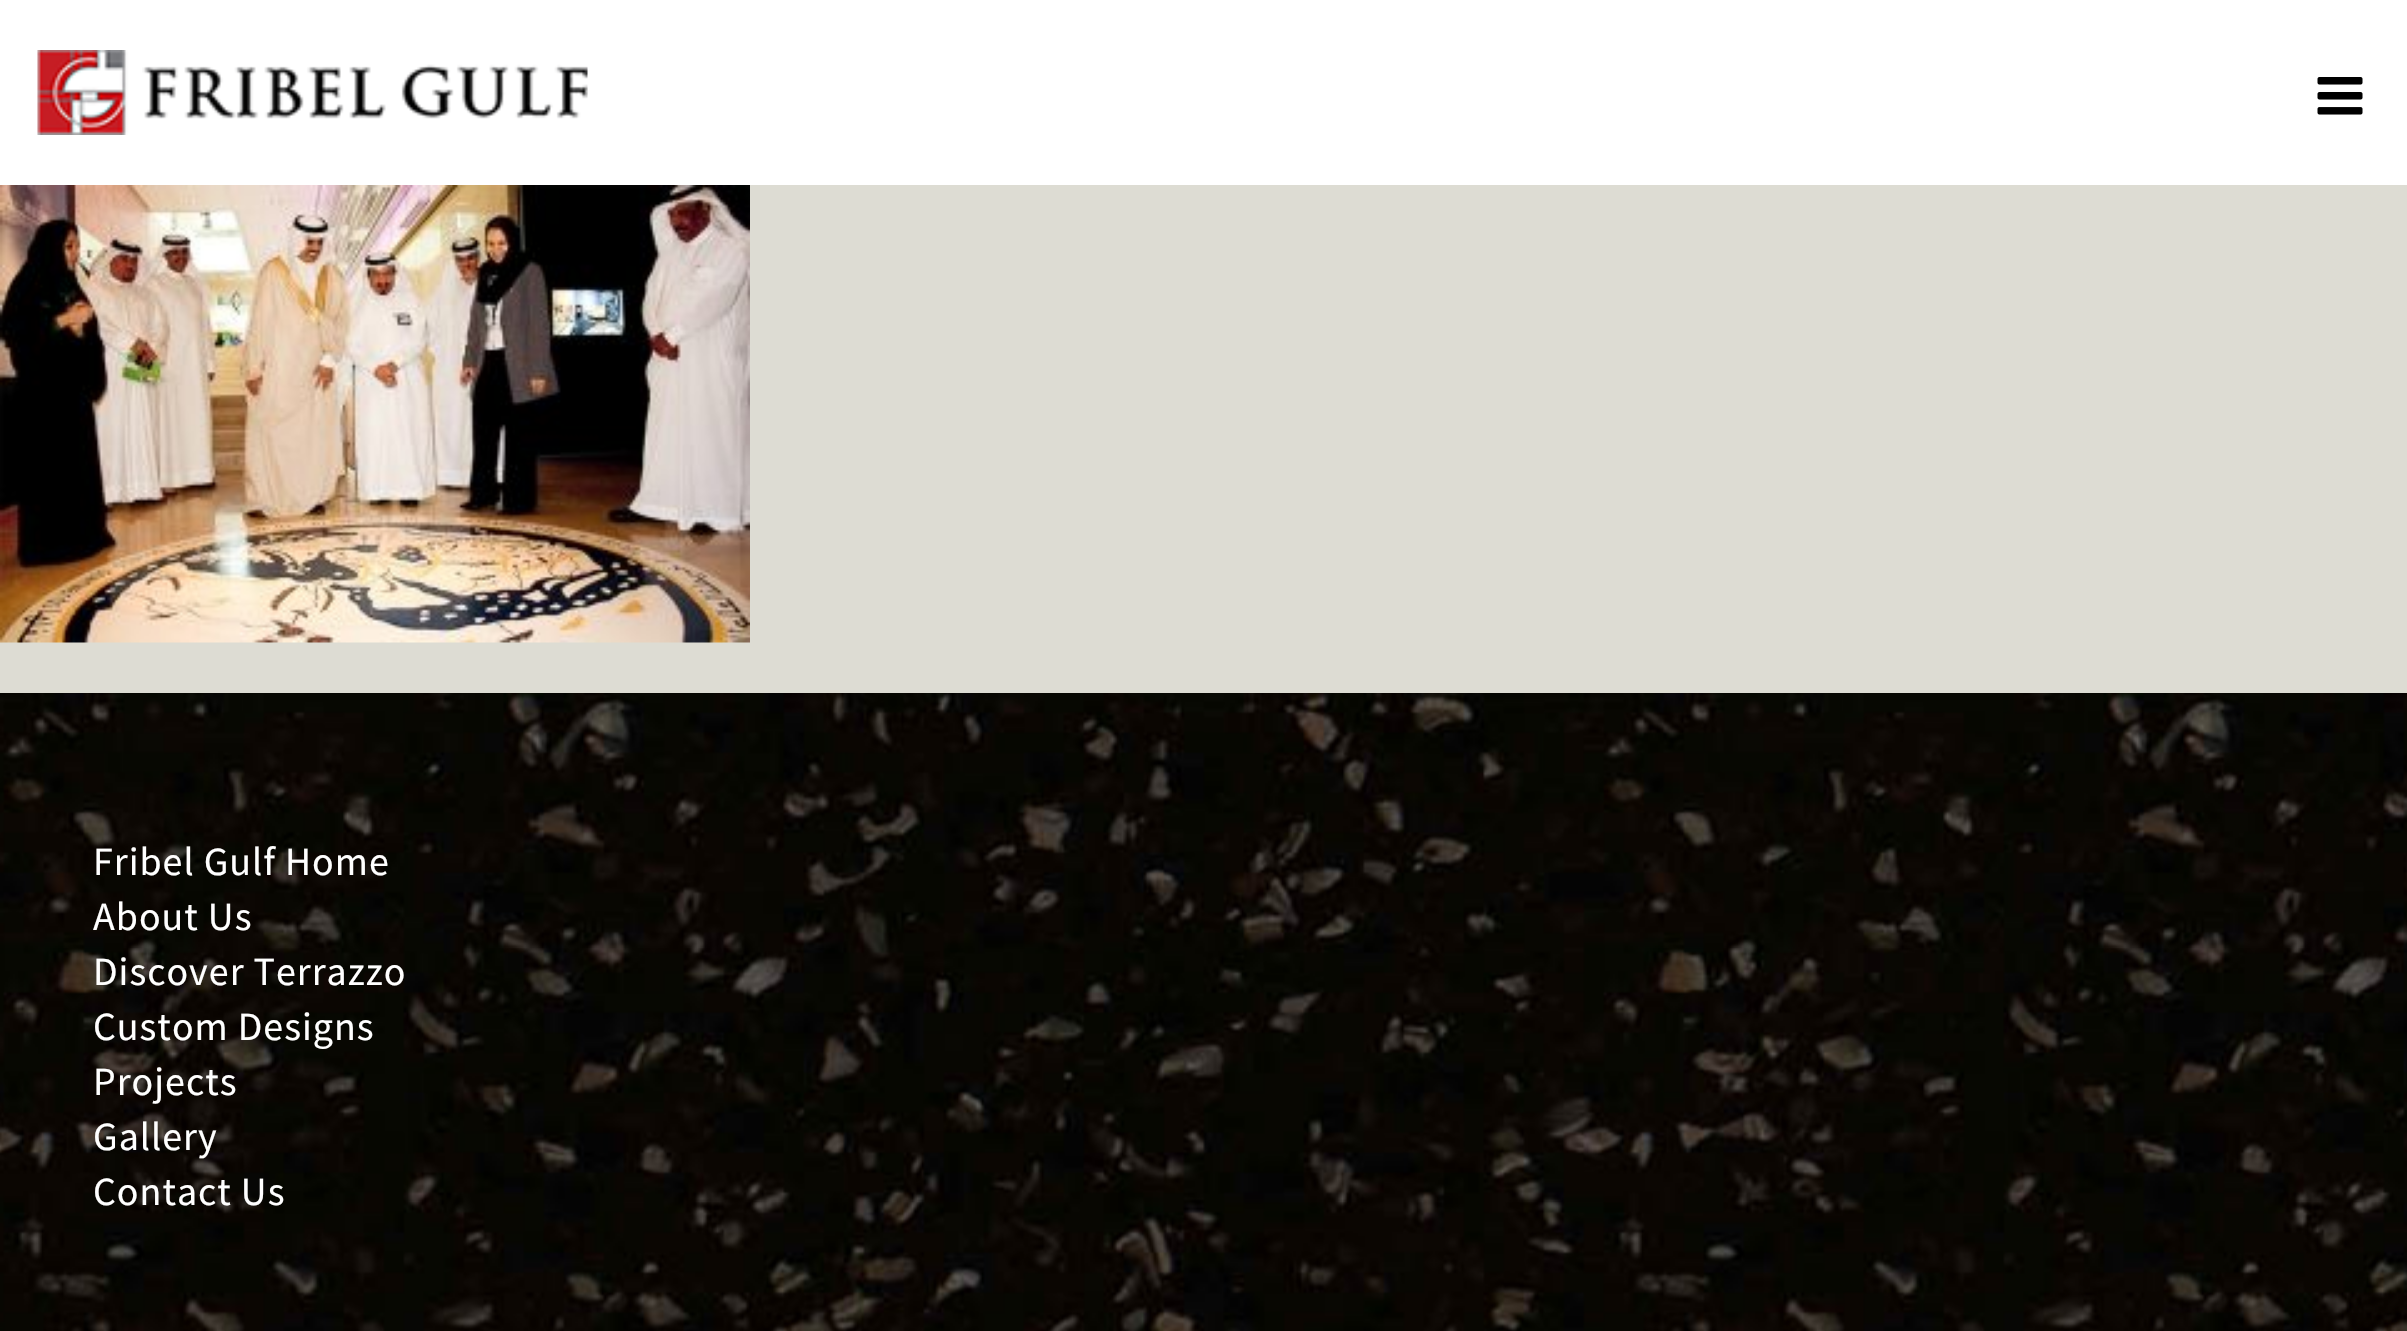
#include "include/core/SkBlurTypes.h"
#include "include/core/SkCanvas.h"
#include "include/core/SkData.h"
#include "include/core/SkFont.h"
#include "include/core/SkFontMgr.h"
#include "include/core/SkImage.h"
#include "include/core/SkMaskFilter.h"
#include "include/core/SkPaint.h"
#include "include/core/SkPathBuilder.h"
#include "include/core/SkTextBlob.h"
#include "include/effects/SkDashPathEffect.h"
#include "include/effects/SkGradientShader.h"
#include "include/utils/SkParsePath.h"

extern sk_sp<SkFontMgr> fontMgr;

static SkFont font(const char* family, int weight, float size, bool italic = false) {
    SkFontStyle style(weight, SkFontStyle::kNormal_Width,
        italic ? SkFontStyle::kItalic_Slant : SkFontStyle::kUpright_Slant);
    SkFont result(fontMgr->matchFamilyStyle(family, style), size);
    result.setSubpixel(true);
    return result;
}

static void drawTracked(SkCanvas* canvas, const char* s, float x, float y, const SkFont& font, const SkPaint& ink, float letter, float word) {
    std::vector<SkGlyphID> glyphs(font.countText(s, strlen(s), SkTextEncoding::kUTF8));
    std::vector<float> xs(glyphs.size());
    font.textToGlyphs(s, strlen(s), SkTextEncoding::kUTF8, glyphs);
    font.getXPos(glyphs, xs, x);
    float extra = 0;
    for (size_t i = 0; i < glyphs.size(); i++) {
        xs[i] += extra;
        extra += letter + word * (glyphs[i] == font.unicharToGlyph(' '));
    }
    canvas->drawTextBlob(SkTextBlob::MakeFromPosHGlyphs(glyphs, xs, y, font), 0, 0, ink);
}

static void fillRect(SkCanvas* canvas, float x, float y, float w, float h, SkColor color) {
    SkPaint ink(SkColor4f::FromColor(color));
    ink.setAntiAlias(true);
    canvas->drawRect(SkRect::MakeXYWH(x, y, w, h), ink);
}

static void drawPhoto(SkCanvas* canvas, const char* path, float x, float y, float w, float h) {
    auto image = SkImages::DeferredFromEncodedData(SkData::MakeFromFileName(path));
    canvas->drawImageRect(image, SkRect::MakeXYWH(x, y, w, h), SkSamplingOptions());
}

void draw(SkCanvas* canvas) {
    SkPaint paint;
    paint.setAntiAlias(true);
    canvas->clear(0xFFDDDCD3);
    fillRect(canvas, 0, 0, 2407, 185, 0xFFFFFFFF);
    drawPhoto(canvas, "assets/img1.png", 37, 50, 551, 85);
    drawPhoto(canvas, "assets/img2.png", 2317, 77, 46, 38);
    drawPhoto(canvas, "assets/img3.png", 0, 185, 750, 458);
    drawPhoto(canvas, "assets/img4.png", 0, 693, 2407, 638);
    SkFont font1 = font("Source Sans Pro", 400, 40);
    paint.setColor(0xFFFFFFFF);
    drawTracked(canvas, "Fribel Gulf Home", 93, 875, font1, paint, 1, 0);
    drawTracked(canvas, "About Us", 93, 930, font1, paint, 1, 0);
    drawTracked(canvas, "Discover Terrazzo", 93, 985, font1, paint, 1, 0);
    drawTracked(canvas, "Custom Designs", 93, 1040, font1, paint, 1, 0);
    drawTracked(canvas, "Projects", 93, 1095, font1, paint, 1, 0);
    drawTracked(canvas, "Gallery", 93, 1150, font1, paint, 1, 0);
    drawTracked(canvas, "Contact Us", 93, 1205, font1, paint, 1, 0);
}
